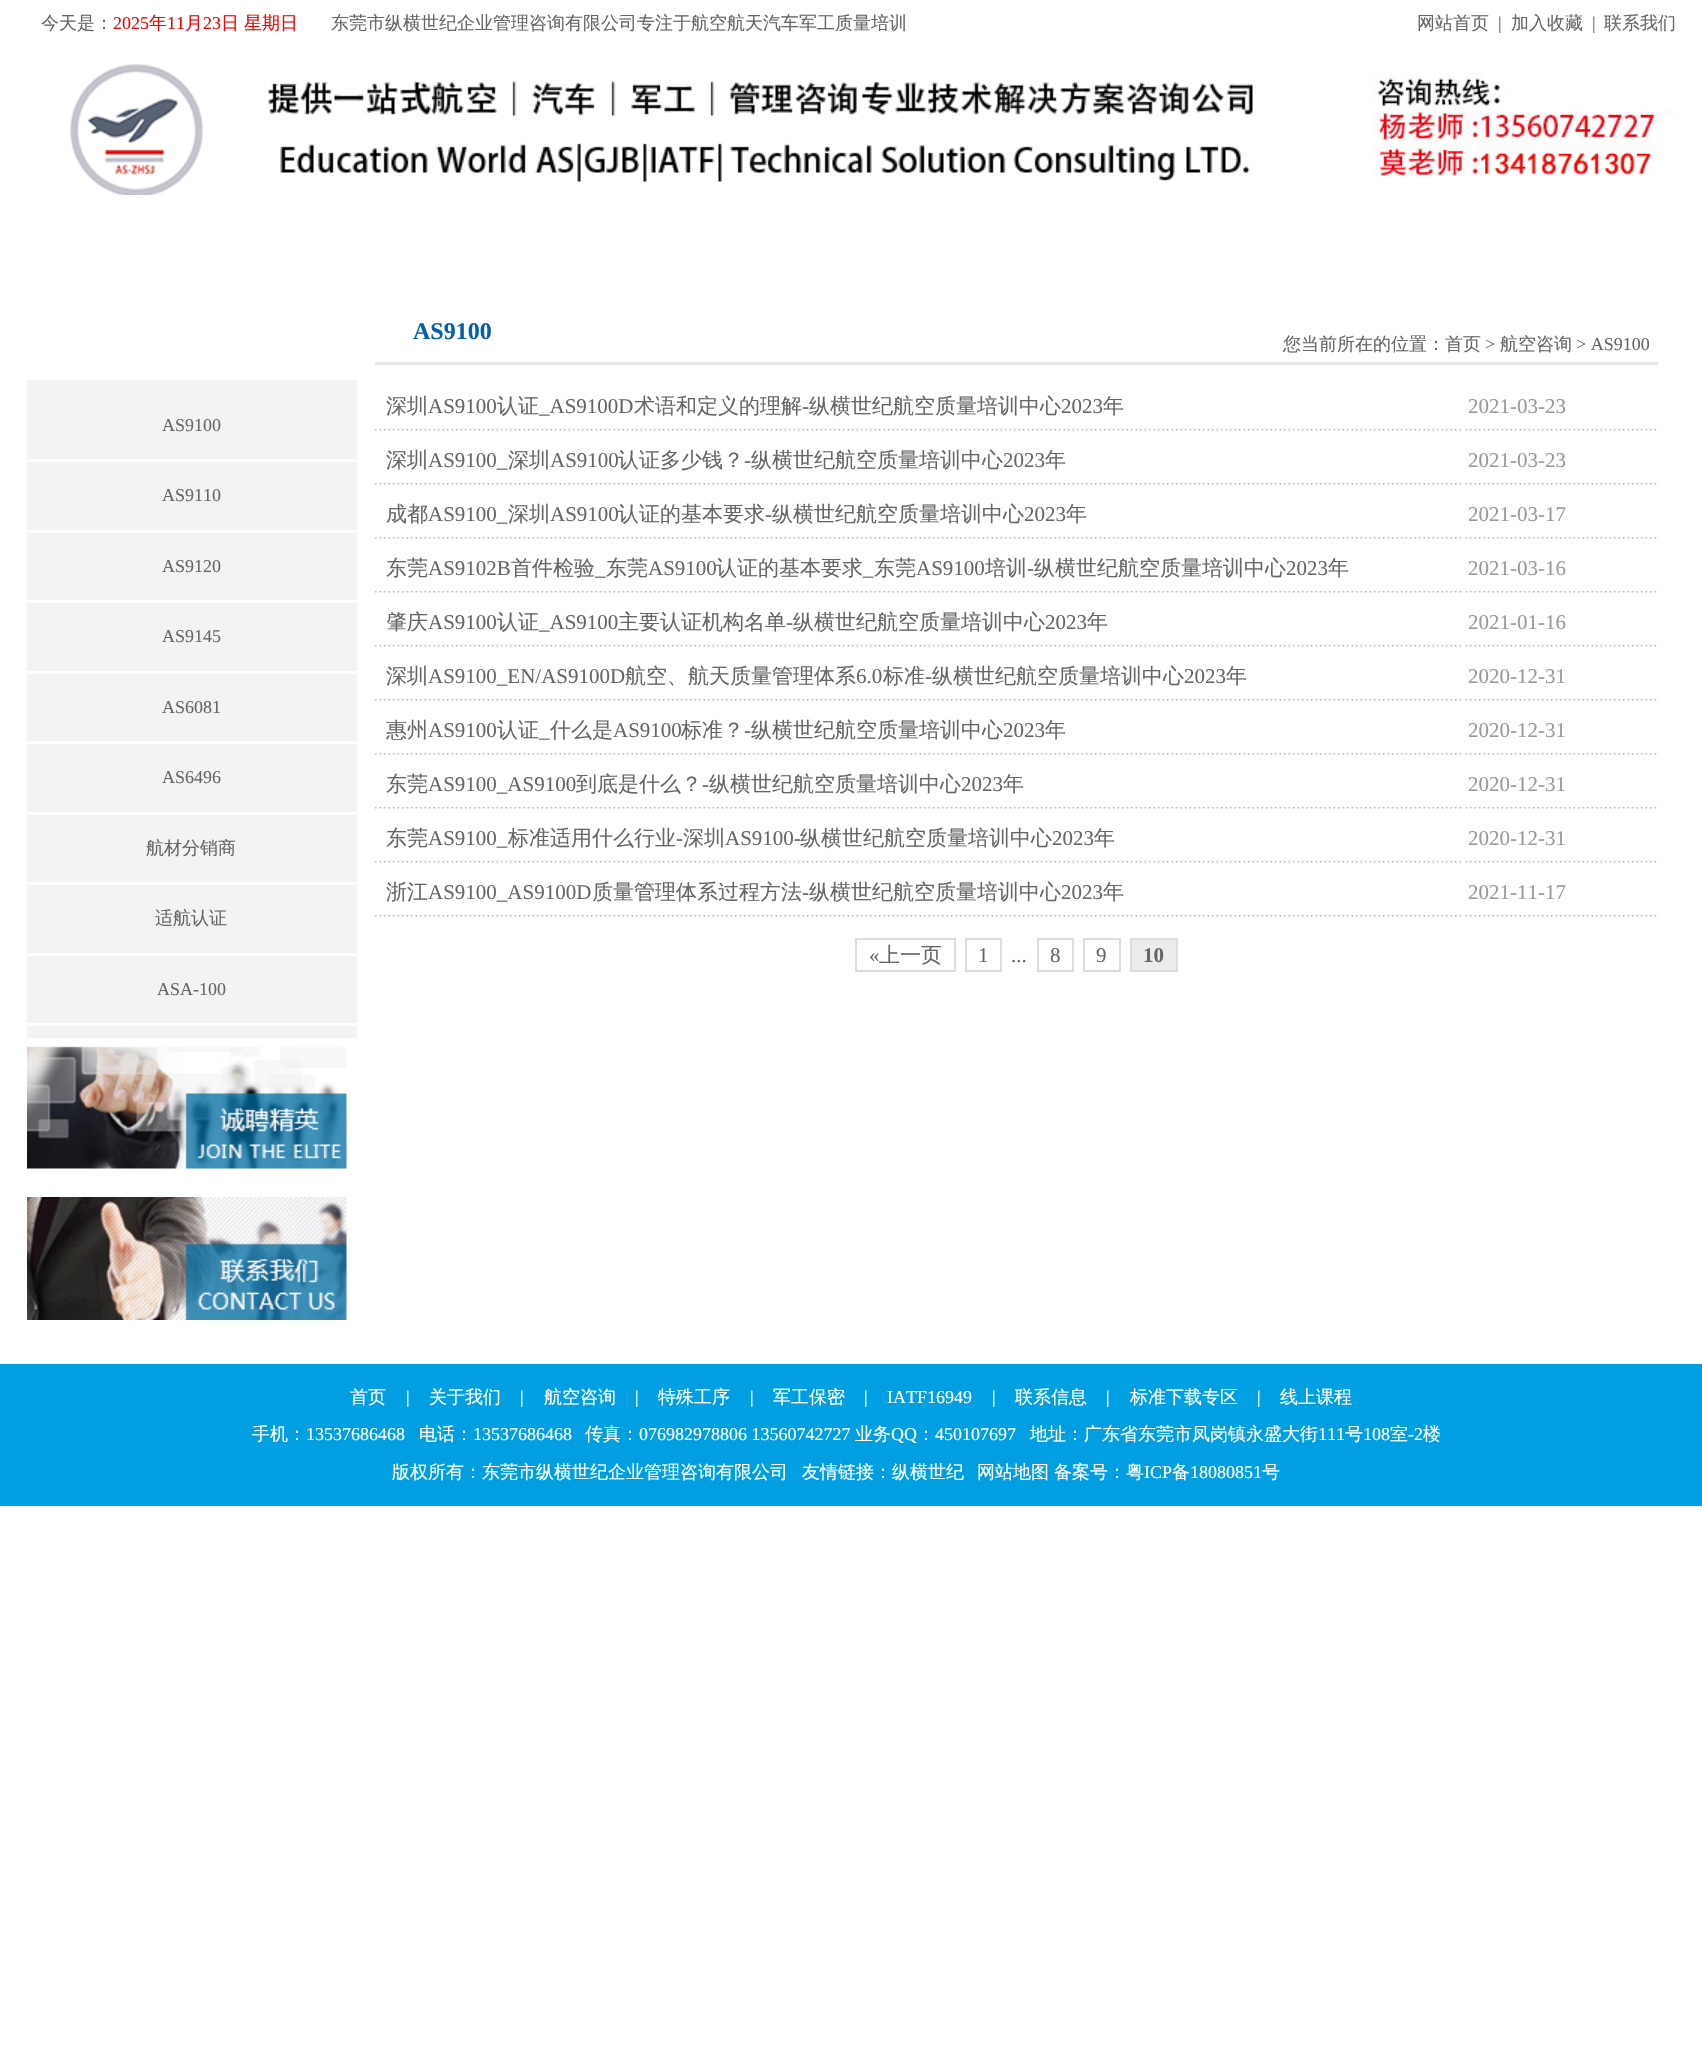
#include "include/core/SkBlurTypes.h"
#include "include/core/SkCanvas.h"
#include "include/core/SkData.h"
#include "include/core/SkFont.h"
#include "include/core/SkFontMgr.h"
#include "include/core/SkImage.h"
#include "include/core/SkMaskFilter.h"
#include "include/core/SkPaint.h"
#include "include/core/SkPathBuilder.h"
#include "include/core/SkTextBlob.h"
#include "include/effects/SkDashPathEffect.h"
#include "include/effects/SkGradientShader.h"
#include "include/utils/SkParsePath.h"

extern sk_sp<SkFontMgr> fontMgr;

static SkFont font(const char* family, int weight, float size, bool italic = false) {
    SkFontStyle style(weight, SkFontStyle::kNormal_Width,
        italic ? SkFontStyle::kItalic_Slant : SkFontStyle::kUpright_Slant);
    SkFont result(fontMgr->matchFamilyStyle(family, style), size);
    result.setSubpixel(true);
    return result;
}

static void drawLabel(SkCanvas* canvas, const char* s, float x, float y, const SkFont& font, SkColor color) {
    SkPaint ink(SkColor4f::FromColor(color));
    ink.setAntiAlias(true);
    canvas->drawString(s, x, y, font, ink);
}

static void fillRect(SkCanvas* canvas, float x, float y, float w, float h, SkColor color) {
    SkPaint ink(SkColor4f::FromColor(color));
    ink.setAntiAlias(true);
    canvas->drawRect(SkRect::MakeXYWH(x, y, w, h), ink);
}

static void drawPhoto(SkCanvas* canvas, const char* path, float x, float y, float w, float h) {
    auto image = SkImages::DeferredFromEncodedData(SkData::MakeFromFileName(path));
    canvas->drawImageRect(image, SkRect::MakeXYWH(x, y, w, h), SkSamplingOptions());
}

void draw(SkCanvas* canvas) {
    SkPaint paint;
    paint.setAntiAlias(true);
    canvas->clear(0xFFFFFFFF);
    SkFont font1 = font("WenQuanYi Zen Hei", 500, 18);
    drawLabel(canvas, "今天是：", 41, 29, font1, 0xFF666666);
    SkFont font2 = font("Liberation Serif", 400, 18);
    drawLabel(canvas, "2025", 113, 29, font2, 0xFFFF0000);
    drawLabel(canvas, "年", 149, 29, font1, 0xFFFF0000);
    drawLabel(canvas, "11", 167, 29, font2, 0xFFFF0000);
    drawLabel(canvas, "月", 185, 29, font1, 0xFFFF0000);
    drawLabel(canvas, "23", 203, 29, font2, 0xFFFF0000);
    drawLabel(canvas, "日", 221, 29, font1, 0xFFFF0000);
    drawLabel(canvas, "星期日", 244, 29, font1, 0xFFFF0000);
    drawLabel(canvas, "东莞市纵横世纪企业管理咨询有限公司专注于航空航天汽车军工质量培训", 331, 29, font1, 0xFF666666);
    drawLabel(canvas, "网站首页", 1417, 29, font1, 0xFF666666);
    drawLabel(canvas, "|", 1498, 29, font2, 0xFF666666);
    drawLabel(canvas, "加入收藏", 1511, 29, font1, 0xFF666666);
    drawLabel(canvas, "|", 1592, 29, font2, 0xFF666666);
    drawLabel(canvas, "联系我们", 1604, 29, font1, 0xFF666666);
    drawPhoto(canvas, "assets/img1.png", 70, 64, 1183, 131);
    drawPhoto(canvas, "assets/img2.png", 1371, 72, 306, 105);
    fillRect(canvas, 27, 380, 330, 658, 0xFFF4F2F3);
    fillRect(canvas, 27, 459, 330, 3, 0xFFFEFEFE);
    drawLabel(canvas, "AS9100", 162, 431, font2, 0xFF666666);
    fillRect(canvas, 27, 530, 330, 3, 0xFFFEFEFE);
    drawLabel(canvas, "AS9110", 162, 501, font2, 0xFF666666);
    fillRect(canvas, 27, 600, 330, 3, 0xFFFEFEFE);
    drawLabel(canvas, "AS9120", 162, 572, font2, 0xFF666666);
    fillRect(canvas, 27, 671, 330, 3, 0xFFFEFEFE);
    drawLabel(canvas, "AS9145", 162, 642, font2, 0xFF666666);
    fillRect(canvas, 27, 741, 330, 3, 0xFFFEFEFE);
    drawLabel(canvas, "AS6081", 162, 713, font2, 0xFF666666);
    fillRect(canvas, 27, 812, 330, 3, 0xFFFEFEFE);
    drawLabel(canvas, "AS6496", 162, 783, font2, 0xFF666666);
    fillRect(canvas, 27, 882, 330, 3, 0xFFFEFEFE);
    drawLabel(canvas, "航材分销商", 146, 854, font1, 0xFF666666);
    fillRect(canvas, 27, 953, 330, 3, 0xFFFEFEFE);
    drawLabel(canvas, "适航认证", 155, 924, font1, 0xFF666666);
    fillRect(canvas, 27, 1023, 330, 3, 0xFFFEFEFE);
    drawLabel(canvas, "ASA-100", 157, 995, font2, 0xFF666666);
    drawPhoto(canvas, "assets/img3.png", 27, 1045, 320, 124);
    drawPhoto(canvas, "assets/img4.png", 27, 1197, 320, 123);
    fillRect(canvas, 375, 362, 1283, 3, 0xFFE5E5E5);
    SkFont font3 = font("Liberation Serif", 700, 24);
    drawLabel(canvas, "AS9100", 413, 339, font3, 0xFF035FAC);
    drawLabel(canvas, "您当前所在的位置：首页", 1283, 350, font1, 0xFF666666);
    drawLabel(canvas, ">", 1485, 350, font2, 0xFF666666);
    drawLabel(canvas, "航空咨询", 1500, 350, font1, 0xFF666666);
    drawLabel(canvas, "> AS9100", 1576, 350, font2, 0xFF666666);
    drawPhoto(canvas, "assets/img5.png", 375, 429, 1087, 2);
    SkFont font4 = font("WenQuanYi Zen Hei", 500, 21);
    drawLabel(canvas, "深圳", 386, 413, font4, 0xFF666666);
    SkFont font5 = font("Liberation Serif", 400, 21);
    drawLabel(canvas, "AS9100", 428, 413, font5, 0xFF666666);
    drawLabel(canvas, "认证", 497, 413, font4, 0xFF666666);
    drawLabel(canvas, "_AS9100D", 539, 413, font5, 0xFF666666);
    drawLabel(canvas, "术语和定义的理解", 634, 413, font4, 0xFF666666);
    drawLabel(canvas, "-", 802, 413, font5, 0xFF666666);
    drawLabel(canvas, "纵横世纪航空质量培训中心", 809, 413, font4, 0xFF666666);
    drawLabel(canvas, "2023", 1061, 413, font5, 0xFF666666);
    drawLabel(canvas, "年", 1103, 413, font4, 0xFF666666);
    drawPhoto(canvas, "assets/img6.png", 1465, 429, 194, 2);
    drawLabel(canvas, "2021-03-23", 1468, 413, font5, 0xFF999999);
    drawPhoto(canvas, "assets/img5.png", 375, 483, 1087, 2);
    drawLabel(canvas, "深圳", 386, 467, font4, 0xFF666666);
    drawLabel(canvas, "AS9100_", 428, 467, font5, 0xFF666666);
    drawLabel(canvas, "深圳", 508, 467, font4, 0xFF666666);
    drawLabel(canvas, "AS9100", 550, 467, font5, 0xFF666666);
    drawLabel(canvas, "认证多少钱？", 618, 467, font4, 0xFF666666);
    drawLabel(canvas, "-", 744, 467, font5, 0xFF666666);
    drawLabel(canvas, "纵横世纪航空质量培训中心", 751, 467, font4, 0xFF666666);
    drawLabel(canvas, "2023", 1003, 467, font5, 0xFF666666);
    drawLabel(canvas, "年", 1045, 467, font4, 0xFF666666);
    drawPhoto(canvas, "assets/img6.png", 1465, 483, 194, 2);
    drawLabel(canvas, "2021-03-23", 1468, 467, font5, 0xFF999999);
    drawPhoto(canvas, "assets/img5.png", 375, 537, 1087, 2);
    drawLabel(canvas, "成都", 386, 521, font4, 0xFF666666);
    drawLabel(canvas, "AS9100_", 428, 521, font5, 0xFF666666);
    drawLabel(canvas, "深圳", 508, 521, font4, 0xFF666666);
    drawLabel(canvas, "AS9100", 550, 521, font5, 0xFF666666);
    drawLabel(canvas, "认证的基本要求", 618, 521, font4, 0xFF666666);
    drawLabel(canvas, "-", 765, 521, font5, 0xFF666666);
    drawLabel(canvas, "纵横世纪航空质量培训中心", 772, 521, font4, 0xFF666666);
    drawLabel(canvas, "2023", 1024, 521, font5, 0xFF666666);
    drawLabel(canvas, "年", 1066, 521, font4, 0xFF666666);
    drawPhoto(canvas, "assets/img6.png", 1465, 537, 194, 2);
    drawLabel(canvas, "2021-03-17", 1468, 521, font5, 0xFF999999);
    drawPhoto(canvas, "assets/img5.png", 375, 591, 1087, 2);
    drawLabel(canvas, "东莞", 386, 575, font4, 0xFF666666);
    drawLabel(canvas, "AS9102B", 428, 575, font5, 0xFF666666);
    drawLabel(canvas, "首件检验", 511, 575, font4, 0xFF666666);
    drawLabel(canvas, "东莞", 606, 575, font4, 0xFF666666);
    drawLabel(canvas, "AS9100", 648, 575, font5, 0xFF666666);
    drawLabel(canvas, "认证的基本要求", 716, 575, font4, 0xFF666666);
    drawLabel(canvas, "_", 863, 575, font5, 0xFF666666);
    drawLabel(canvas, "东莞", 874, 575, font4, 0xFF666666);
    drawLabel(canvas, "AS9100", 916, 575, font5, 0xFF666666);
    drawLabel(canvas, "培训", 985, 575, font4, 0xFF666666);
    drawLabel(canvas, "-", 1027, 575, font5, 0xFF666666);
    drawLabel(canvas, "纵横世纪航空质量培训中心", 1034, 575, font4, 0xFF666666);
    drawLabel(canvas, "2023", 1286, 575, font5, 0xFF666666);
    drawLabel(canvas, "年", 1328, 575, font4, 0xFF666666);
    drawLabel(canvas, "_", 595, 575, font5, 0xFF666666);
    drawPhoto(canvas, "assets/img6.png", 1465, 591, 194, 2);
    drawLabel(canvas, "2021-03-16", 1468, 575, font5, 0xFF999999);
    drawPhoto(canvas, "assets/img5.png", 375, 645, 1087, 2);
    drawLabel(canvas, "肇庆", 386, 629, font4, 0xFF666666);
    drawLabel(canvas, "AS9100", 428, 629, font5, 0xFF666666);
    drawLabel(canvas, "认证", 497, 629, font4, 0xFF666666);
    drawLabel(canvas, "_AS9100", 539, 629, font5, 0xFF666666);
    drawLabel(canvas, "主要认证机构名单", 618, 629, font4, 0xFF666666);
    drawLabel(canvas, "-", 786, 629, font5, 0xFF666666);
    drawLabel(canvas, "纵横世纪航空质量培训中心", 793, 629, font4, 0xFF666666);
    drawLabel(canvas, "2023", 1045, 629, font5, 0xFF666666);
    drawLabel(canvas, "年", 1087, 629, font4, 0xFF666666);
    drawPhoto(canvas, "assets/img6.png", 1465, 645, 194, 2);
    drawLabel(canvas, "2021-01-16", 1468, 629, font5, 0xFF999999);
    drawPhoto(canvas, "assets/img5.png", 375, 699, 1087, 2);
    drawLabel(canvas, "深圳", 386, 683, font4, 0xFF666666);
    drawLabel(canvas, "AS9100_EN/AS9100D", 428, 683, font5, 0xFF666666);
    drawLabel(canvas, "航空、航天质量管理体系", 625, 683, font4, 0xFF666666);
    drawLabel(canvas, "6.0", 856, 683, font5, 0xFF666666);
    drawLabel(canvas, "标准", 883, 683, font4, 0xFF666666);
    drawLabel(canvas, "-", 925, 683, font5, 0xFF666666);
    drawLabel(canvas, "纵横世纪航空质量培训中心", 932, 683, font4, 0xFF666666);
    drawLabel(canvas, "2023", 1184, 683, font5, 0xFF666666);
    drawLabel(canvas, "年", 1226, 683, font4, 0xFF666666);
    drawPhoto(canvas, "assets/img6.png", 1465, 699, 194, 2);
    drawLabel(canvas, "2020-12-31", 1468, 683, font5, 0xFF999999);
    drawPhoto(canvas, "assets/img5.png", 375, 753, 1087, 2);
    drawLabel(canvas, "惠州", 386, 737, font4, 0xFF666666);
    drawLabel(canvas, "AS9100", 428, 737, font5, 0xFF666666);
    drawLabel(canvas, "认证", 497, 737, font4, 0xFF666666);
    drawLabel(canvas, "_", 539, 737, font5, 0xFF666666);
    drawLabel(canvas, "什么是", 550, 737, font4, 0xFF666666);
    drawLabel(canvas, "AS9100", 613, 737, font5, 0xFF666666);
    drawLabel(canvas, "标准？", 681, 737, font4, 0xFF666666);
    drawLabel(canvas, "-", 744, 737, font5, 0xFF666666);
    drawLabel(canvas, "纵横世纪航空质量培训中心", 751, 737, font4, 0xFF666666);
    drawLabel(canvas, "2023", 1003, 737, font5, 0xFF666666);
    drawLabel(canvas, "年", 1045, 737, font4, 0xFF666666);
    drawPhoto(canvas, "assets/img6.png", 1465, 753, 194, 2);
    drawLabel(canvas, "2020-12-31", 1468, 737, font5, 0xFF999999);
    drawPhoto(canvas, "assets/img5.png", 375, 807, 1087, 2);
    drawLabel(canvas, "东莞", 386, 791, font4, 0xFF666666);
    drawLabel(canvas, "AS9100_AS9100", 428, 791, font5, 0xFF666666);
    drawLabel(canvas, "到底是什么？", 576, 791, font4, 0xFF666666);
    drawLabel(canvas, "-", 702, 791, font5, 0xFF666666);
    drawLabel(canvas, "纵横世纪航空质量培训中心", 709, 791, font4, 0xFF666666);
    drawLabel(canvas, "2023", 961, 791, font5, 0xFF666666);
    drawLabel(canvas, "年", 1003, 791, font4, 0xFF666666);
    drawPhoto(canvas, "assets/img6.png", 1465, 807, 194, 2);
    drawLabel(canvas, "2020-12-31", 1468, 791, font5, 0xFF999999);
    drawPhoto(canvas, "assets/img5.png", 375, 861, 1087, 2);
    drawLabel(canvas, "东莞", 386, 845, font4, 0xFF666666);
    drawLabel(canvas, "AS9100_", 428, 845, font5, 0xFF666666);
    drawLabel(canvas, "标准适用什么行业", 508, 845, font4, 0xFF666666);
    drawLabel(canvas, "-", 676, 845, font5, 0xFF666666);
    drawLabel(canvas, "深圳", 683, 845, font4, 0xFF666666);
    drawLabel(canvas, "AS9100-", 725, 845, font5, 0xFF666666);
    drawLabel(canvas, "纵横世纪航空质量培训中心", 800, 845, font4, 0xFF666666);
    drawLabel(canvas, "2023", 1052, 845, font5, 0xFF666666);
    drawLabel(canvas, "年", 1094, 845, font4, 0xFF666666);
    drawPhoto(canvas, "assets/img6.png", 1465, 861, 194, 2);
    drawLabel(canvas, "2020-12-31", 1468, 845, font5, 0xFF999999);
    drawPhoto(canvas, "assets/img5.png", 375, 915, 1087, 2);
    drawLabel(canvas, "浙江", 386, 899, font4, 0xFF666666);
    drawLabel(canvas, "AS9100_AS9100D", 428, 899, font5, 0xFF666666);
    drawLabel(canvas, "质量管理体系过程方法", 592, 899, font4, 0xFF666666);
    drawLabel(canvas, "-", 802, 899, font5, 0xFF666666);
    drawLabel(canvas, "纵横世纪航空质量培训中心", 809, 899, font4, 0xFF666666);
    drawLabel(canvas, "2023", 1061, 899, font5, 0xFF666666);
    drawLabel(canvas, "年", 1103, 899, font4, 0xFF666666);
    drawPhoto(canvas, "assets/img6.png", 1465, 915, 194, 2);
    drawLabel(canvas, "2021-11-17", 1468, 899, font5, 0xFF999999);
    paint.setStroke(true);
    paint.setStrokeWidth(2);
    paint.setColor(0xFFDDDDDD);
    canvas->drawRect(SkRect::MakeXYWH(856, 939, 99, 32), paint);
    drawLabel(canvas, "«", 869, 962, font5, 0xFF666666);
    drawLabel(canvas, "上一页", 879, 962, font4, 0xFF666666);
    canvas->drawRect(SkRect::MakeXYWH(966, 939, 35, 32), paint);
    drawLabel(canvas, "1", 978, 962, font5, 0xFF666666);
    drawLabel(canvas, "...", 1011, 962, font5, 0xFF666666);
    canvas->drawRect(SkRect::MakeXYWH(1038, 939, 35, 32), paint);
    drawLabel(canvas, "8", 1050, 962, font5, 0xFF666666);
    canvas->drawRect(SkRect::MakeXYWH(1084, 939, 36, 32), paint);
    drawLabel(canvas, "9", 1096, 962, font5, 0xFF666666);
    paint.setStroke(false);
    paint.setColor(0xFFECECEC);
    canvas->drawRect(SkRect::MakeXYWH(1131, 939, 46, 32), paint);
    paint.setStroke(true);
    paint.setColor(0xFFDDDDDD);
    canvas->drawRect(SkRect::MakeXYWH(1131, 939, 46, 32), paint);
    SkFont font6 = font("Liberation Serif", 700, 21);
    drawLabel(canvas, "10", 1143, 962, font6, 0xFF666666);
    fillRect(canvas, 0, 1364, 1702, 142, 0xFF009FE1);
    drawLabel(canvas, "首页", 350, 1403, font1, 0xFFFFFFFF);
    drawLabel(canvas, "|", 406, 1403, font2, 0xFFFFFFFF);
    drawLabel(canvas, "关于我们", 429, 1403, font1, 0xFFFFFFFF);
    drawLabel(canvas, "|", 520, 1403, font2, 0xFFFFFFFF);
    drawLabel(canvas, "航空咨询", 544, 1403, font1, 0xFFFFFFFF);
    drawLabel(canvas, "|", 635, 1403, font2, 0xFFFFFFFF);
    drawLabel(canvas, "特殊工序", 658, 1403, font1, 0xFFFFFFFF);
    drawLabel(canvas, "|", 750, 1403, font2, 0xFFFFFFFF);
    drawLabel(canvas, "军工保密", 773, 1403, font1, 0xFFFFFFFF);
    drawLabel(canvas, "|", 864, 1403, font2, 0xFFFFFFFF);
    drawLabel(canvas, "IATF16949", 887, 1403, font2, 0xFFFFFFFF);
    drawLabel(canvas, "|", 992, 1403, font2, 0xFFFFFFFF);
    drawLabel(canvas, "联系信息", 1015, 1403, font1, 0xFFFFFFFF);
    drawLabel(canvas, "|", 1106, 1403, font2, 0xFFFFFFFF);
    drawLabel(canvas, "标准下载专区", 1130, 1403, font1, 0xFFFFFFFF);
    drawLabel(canvas, "|", 1257, 1403, font2, 0xFFFFFFFF);
    drawLabel(canvas, "线上课程", 1280, 1403, font1, 0xFFFFFFFF);
    drawLabel(canvas, "手机：", 252, 1440, font1, 0xFFFFFFFF);
    drawLabel(canvas, "13537686468", 306, 1440, font2, 0xFFFFFFFF);
    drawLabel(canvas, "电话：", 419, 1440, font1, 0xFFFFFFFF);
    drawLabel(canvas, "13537686468", 473, 1440, font2, 0xFFFFFFFF);
    drawLabel(canvas, "传真：", 585, 1440, font1, 0xFFFFFFFF);
    drawLabel(canvas, "076982978806 13560742727", 639, 1440, font2, 0xFFFFFFFF);
    drawLabel(canvas, "业务", 855, 1440, font1, 0xFFFFFFFF);
    drawLabel(canvas, "QQ", 891, 1440, font2, 0xFFFFFFFF);
    drawLabel(canvas, "：", 917, 1440, font1, 0xFFFFFFFF);
    drawLabel(canvas, "450107697", 935, 1440, font2, 0xFFFFFFFF);
    drawLabel(canvas, "地址：广东省东莞市凤岗镇永盛大街", 1030, 1440, font1, 0xFFFFFFFF);
    drawLabel(canvas, "111", 1318, 1440, font2, 0xFFFFFFFF);
    drawLabel(canvas, "号", 1345, 1440, font1, 0xFFFFFFFF);
    drawLabel(canvas, "108", 1363, 1440, font2, 0xFFFFFFFF);
    drawLabel(canvas, "室", 1390, 1440, font1, 0xFFFFFFFF);
    drawLabel(canvas, "-2", 1408, 1440, font2, 0xFFFFFFFF);
    drawLabel(canvas, "楼", 1423, 1440, font1, 0xFFFFFFFF);
    drawLabel(canvas, "版权所有：东莞市纵横世纪企业管理咨询有限公司", 392, 1478, font1, 0xFFFFFFFF);
    drawLabel(canvas, "友情链接：纵横世纪", 802, 1478, font1, 0xFFFFFFFF);
    drawLabel(canvas, "网站地图", 977, 1478, font1, 0xFFFFFFFF);
    drawLabel(canvas, "备案号：粤", 1054, 1478, font1, 0xFFFFFFFF);
    drawLabel(canvas, "ICP", 1144, 1478, font2, 0xFFFFFFFF);
    drawLabel(canvas, "备", 1172, 1478, font1, 0xFFFFFFFF);
    drawLabel(canvas, "18080851", 1190, 1478, font2, 0xFFFFFFFF);
    drawLabel(canvas, "号", 1262, 1478, font1, 0xFFFFFFFF);
}
